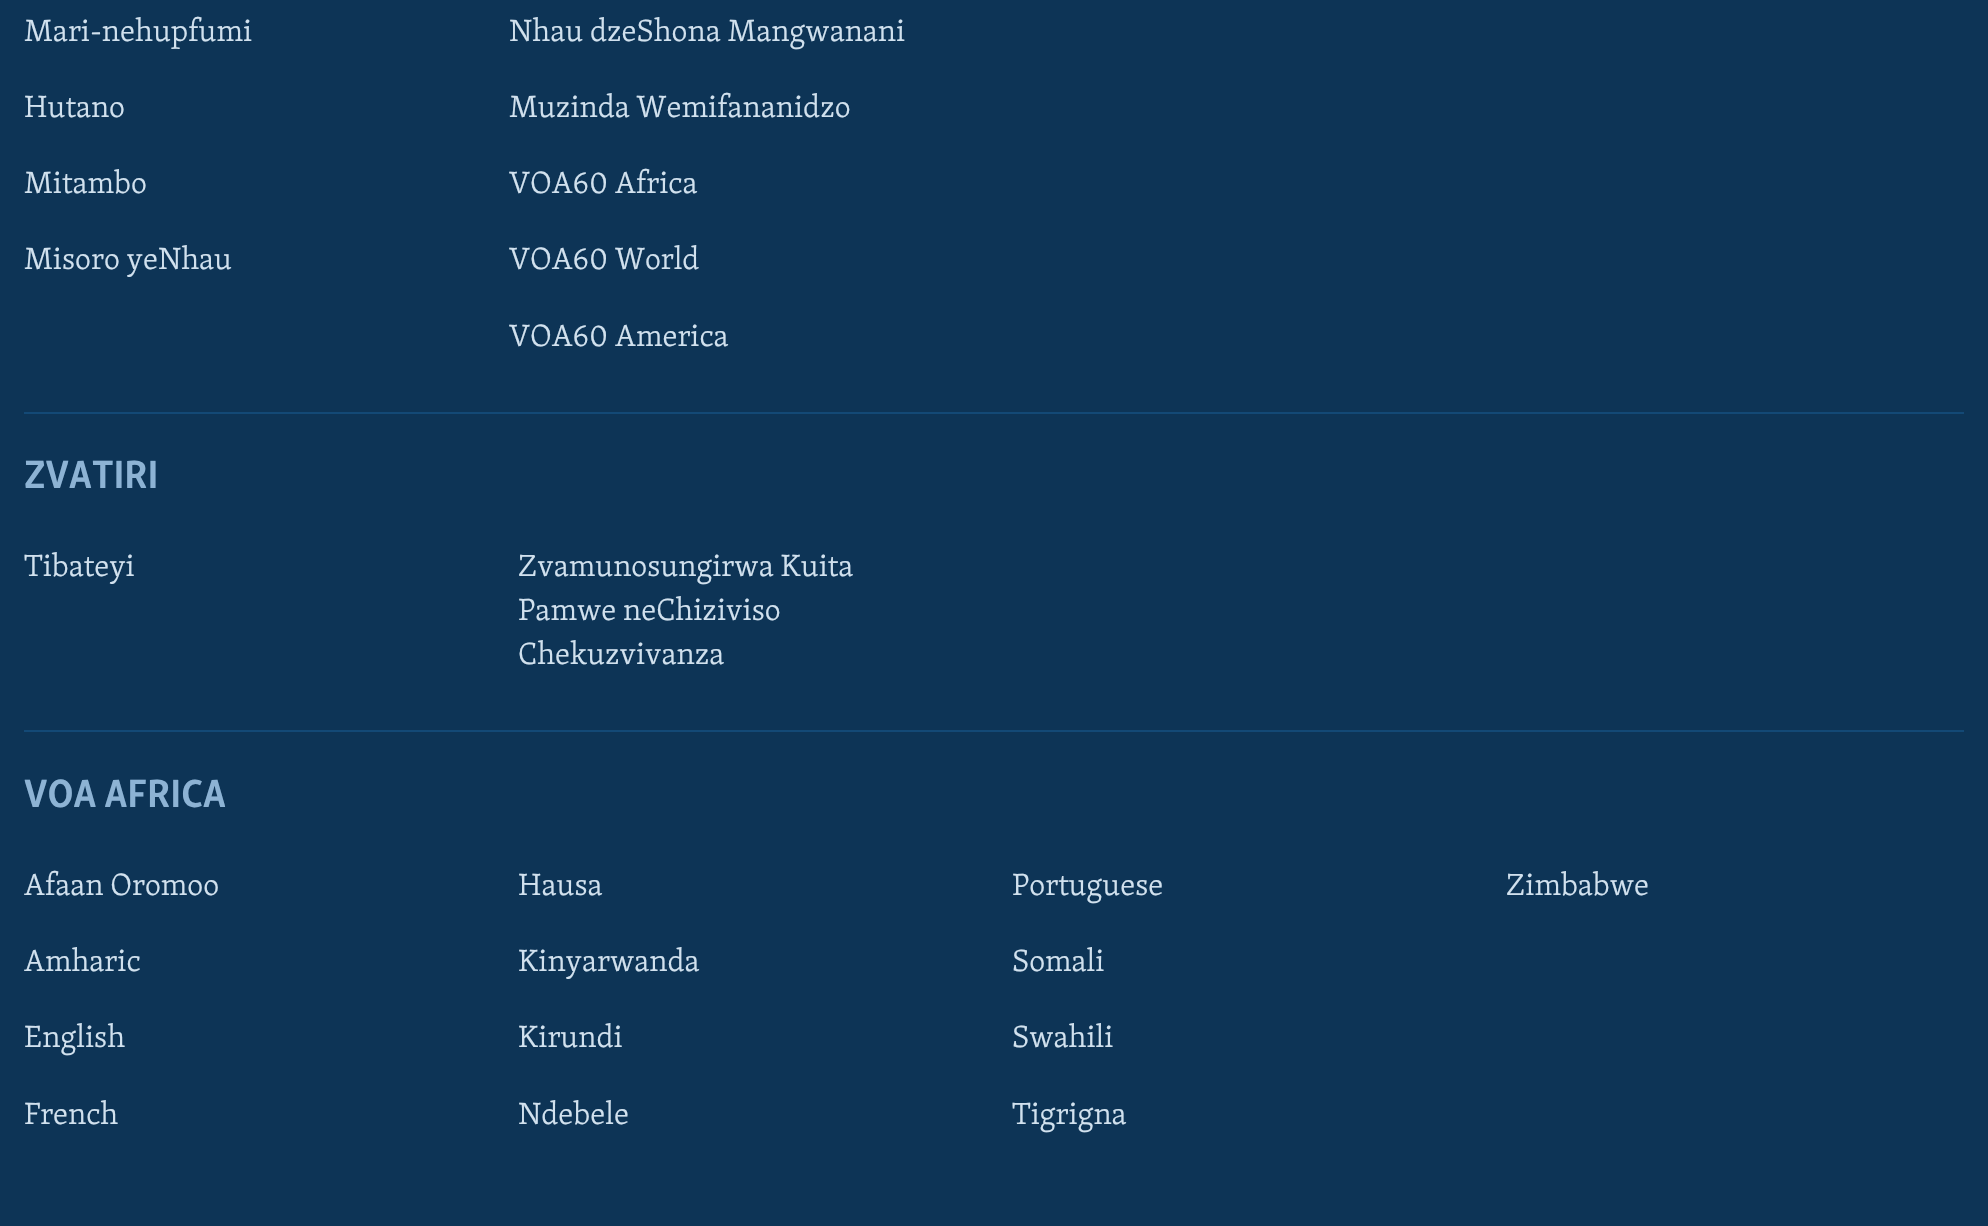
#include "include/core/SkBlurTypes.h"
#include "include/core/SkCanvas.h"
#include "include/core/SkData.h"
#include "include/core/SkFont.h"
#include "include/core/SkFontMgr.h"
#include "include/core/SkImage.h"
#include "include/core/SkMaskFilter.h"
#include "include/core/SkPaint.h"
#include "include/core/SkPathBuilder.h"
#include "include/core/SkTextBlob.h"
#include "include/effects/SkDashPathEffect.h"
#include "include/effects/SkGradientShader.h"
#include "include/utils/SkParsePath.h"

extern sk_sp<SkFontMgr> fontMgr;

static SkFont font(const char* family, int weight, float size, bool italic = false) {
    SkFontStyle style(weight, SkFontStyle::kNormal_Width,
        italic ? SkFontStyle::kItalic_Slant : SkFontStyle::kUpright_Slant);
    SkFont result(fontMgr->matchFamilyStyle(family, style), size);
    result.setSubpixel(true);
    return result;
}

static void drawLabel(SkCanvas* canvas, const char* s, float x, float y, const SkFont& font, SkColor color) {
    SkPaint ink(SkColor4f::FromColor(color));
    ink.setAntiAlias(true);
    canvas->drawString(s, x, y, font, ink);
}

static void fillRect(SkCanvas* canvas, float x, float y, float w, float h, SkColor color) {
    SkPaint ink(SkColor4f::FromColor(color));
    ink.setAntiAlias(true);
    canvas->drawRect(SkRect::MakeXYWH(x, y, w, h), ink);
}

void draw(SkCanvas* canvas) {
    SkPaint paint;
    paint.setAntiAlias(true);
    canvas->clear(0xFF0D3456);
    SkFont font1 = font("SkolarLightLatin", 300, 31.5f);
    drawLabel(canvas, "Mari-nehupfumi", 24, 41, font1, 0xFFD1E1EE);
    drawLabel(canvas, "Hutano", 24, 117, font1, 0xFFD1E1EE);
    drawLabel(canvas, "Mitambo", 24, 193, font1, 0xFFD1E1EE);
    drawLabel(canvas, "Misoro yeNhau", 24, 269, font1, 0xFFD1E1EE);
    drawLabel(canvas, "Nhau dzeShona Mangwanani", 509, 41, font1, 0xFFD1E1EE);
    drawLabel(canvas, "Muzinda Wemifananidzo", 509, 117, font1, 0xFFD1E1EE);
    drawLabel(canvas, "VOA60 Africa", 509, 193, font1, 0xFFD1E1EE);
    drawLabel(canvas, "VOA60 World", 509, 269, font1, 0xFFD1E1EE);
    drawLabel(canvas, "VOA60 America", 509, 346, font1, 0xFFD1E1EE);
    fillRect(canvas, 24, 412, 1940, 2, 0xFF134976);
    SkFont font2 = font("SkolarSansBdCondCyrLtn", 700, 40.5f);
    drawLabel(canvas, "ZVATIRI", 24, 488, font2, 0xFF8DB3D4);
    drawLabel(canvas, "Tibateyi", 24, 576, font1, 0xFFD1E1EE);
    drawLabel(canvas, "Zvamunosungirwa Kuita", 518, 576, font1, 0xFFD1E1EE);
    drawLabel(canvas, "Pamwe neChiziviso", 518, 620, font1, 0xFFD1E1EE);
    drawLabel(canvas, "Chekuzvivanza", 518, 664, font1, 0xFFD1E1EE);
    fillRect(canvas, 24, 730, 1940, 2, 0xFF134976);
    drawLabel(canvas, "VOA AFRICA", 24, 807, font2, 0xFF8DB3D4);
    drawLabel(canvas, "Afaan Oromoo", 24, 895, font1, 0xFFD1E1EE);
    drawLabel(canvas, "Hausa", 518, 895, font1, 0xFFD1E1EE);
    drawLabel(canvas, "Portuguese", 1012, 895, font1, 0xFFD1E1EE);
    drawLabel(canvas, "Zimbabwe", 1506, 895, font1, 0xFFD1E1EE);
    drawLabel(canvas, "Amharic", 24, 971, font1, 0xFFD1E1EE);
    drawLabel(canvas, "Kinyarwanda", 518, 971, font1, 0xFFD1E1EE);
    drawLabel(canvas, "Somali", 1012, 971, font1, 0xFFD1E1EE);
    drawLabel(canvas, "English", 24, 1047, font1, 0xFFD1E1EE);
    drawLabel(canvas, "Kirundi", 518, 1047, font1, 0xFFD1E1EE);
    drawLabel(canvas, "Swahili", 1012, 1047, font1, 0xFFD1E1EE);
    drawLabel(canvas, "French", 24, 1124, font1, 0xFFD1E1EE);
    drawLabel(canvas, "Ndebele", 518, 1124, font1, 0xFFD1E1EE);
    drawLabel(canvas, "Tigrigna", 1012, 1124, font1, 0xFFD1E1EE);
}
